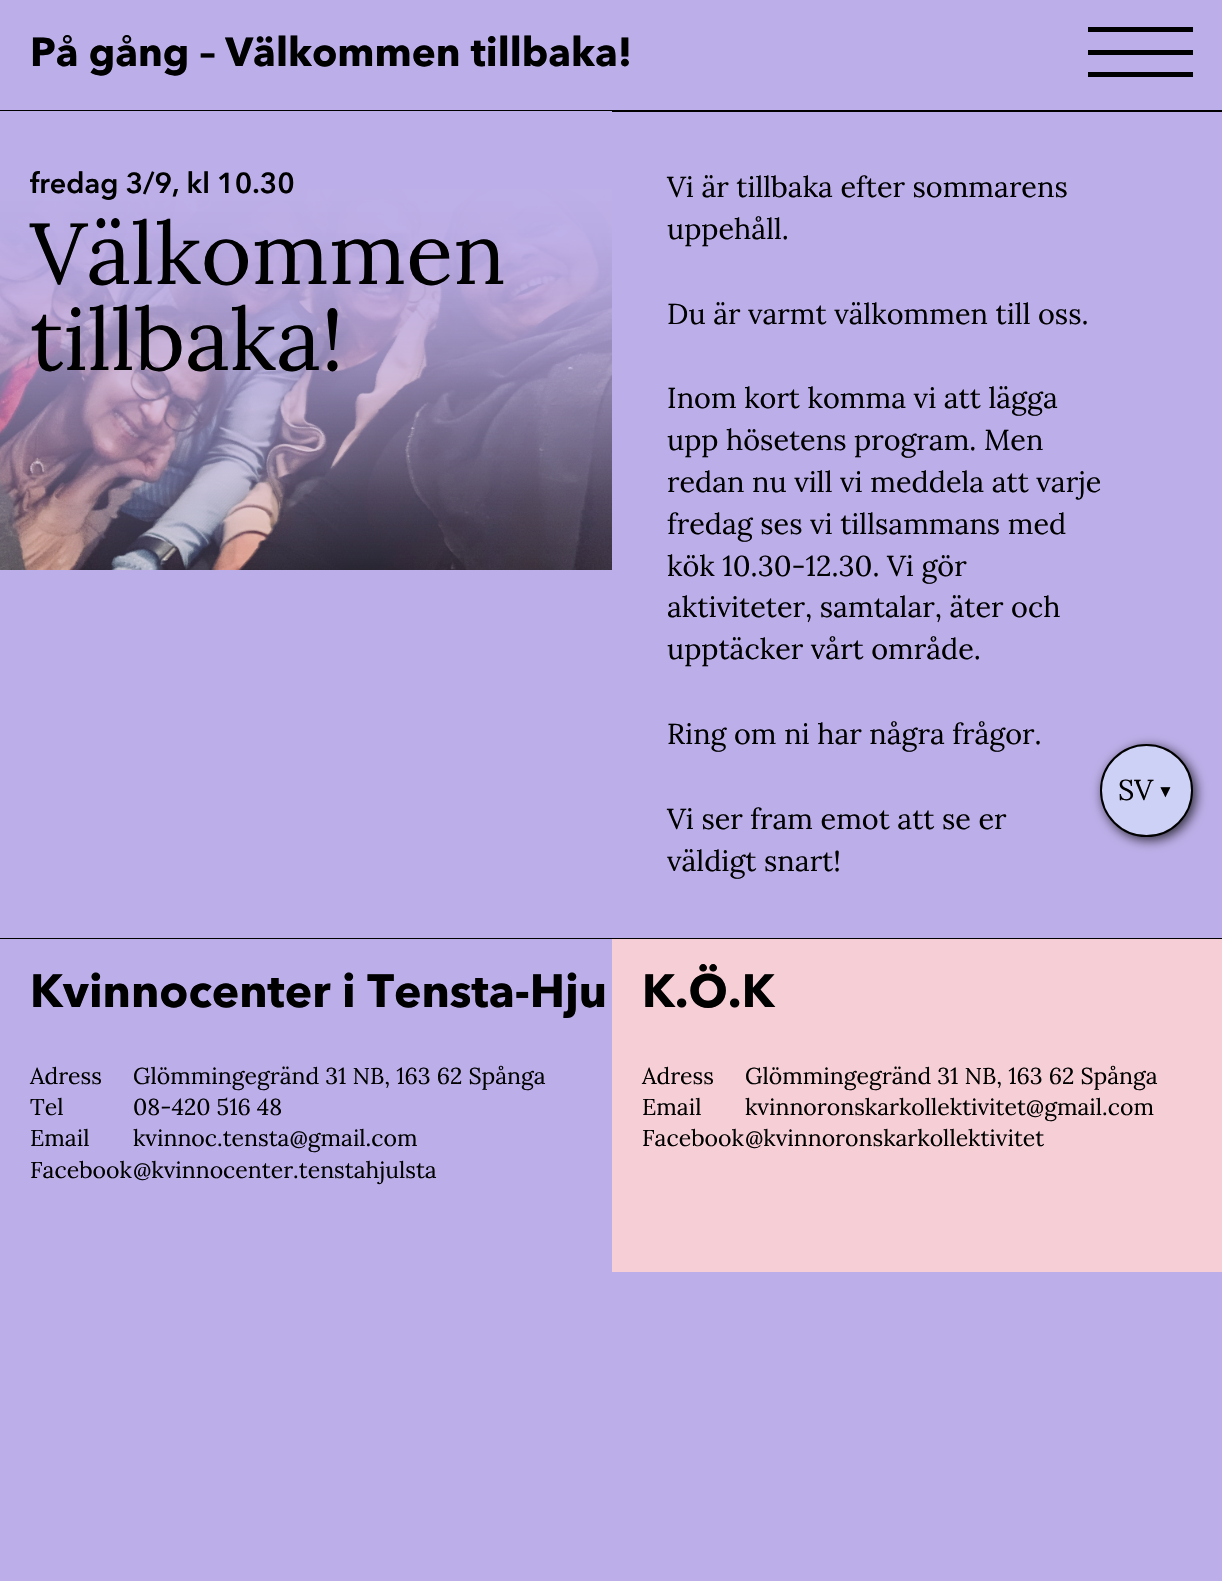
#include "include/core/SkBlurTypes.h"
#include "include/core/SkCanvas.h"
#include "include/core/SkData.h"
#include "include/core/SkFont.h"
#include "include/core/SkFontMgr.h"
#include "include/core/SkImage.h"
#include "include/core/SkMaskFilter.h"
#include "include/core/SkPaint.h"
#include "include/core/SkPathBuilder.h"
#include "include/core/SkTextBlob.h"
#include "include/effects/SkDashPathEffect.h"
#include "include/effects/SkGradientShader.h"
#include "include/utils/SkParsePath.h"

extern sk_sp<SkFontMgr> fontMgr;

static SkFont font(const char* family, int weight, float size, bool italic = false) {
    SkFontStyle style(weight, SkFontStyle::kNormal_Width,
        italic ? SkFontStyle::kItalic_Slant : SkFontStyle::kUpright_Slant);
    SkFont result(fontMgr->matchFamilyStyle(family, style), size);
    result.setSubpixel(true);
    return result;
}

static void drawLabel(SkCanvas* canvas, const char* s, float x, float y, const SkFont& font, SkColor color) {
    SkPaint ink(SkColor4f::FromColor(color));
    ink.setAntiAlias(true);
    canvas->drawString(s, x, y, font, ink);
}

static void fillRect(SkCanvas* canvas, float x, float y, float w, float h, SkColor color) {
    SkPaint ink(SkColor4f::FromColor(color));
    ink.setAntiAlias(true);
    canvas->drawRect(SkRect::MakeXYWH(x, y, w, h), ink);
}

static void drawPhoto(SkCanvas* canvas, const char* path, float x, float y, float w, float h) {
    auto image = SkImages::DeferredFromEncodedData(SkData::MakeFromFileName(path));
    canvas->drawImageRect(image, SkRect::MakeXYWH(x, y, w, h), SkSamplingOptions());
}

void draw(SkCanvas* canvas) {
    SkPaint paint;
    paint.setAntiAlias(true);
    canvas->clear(0xFFBCAEE8);
    fillRect(canvas, 0, 110, 1222, 2, 0xFF000000);
    SkFont font1 = font("Avenir Next", 700, 40.3f);
    drawLabel(canvas, "På gång – Välkommen tillbaka!", 30, 66, font1, 0xFF000000);
    fillRect(canvas, 1088, 50, 105, 5, 0xFF000000);
    fillRect(canvas, 1088, 27, 105, 5, 0xFF000000);
    fillRect(canvas, 1088, 72, 105, 5, 0xFF000000);
    fillRect(canvas, 0, 938, 1222, 1, 0xFF000000);
    drawPhoto(canvas, "assets/img1.png", 0, 189, 612, 381);
    {
        const SkColor colors[] = {0xFFBCAEE8, 0xFABCAEE8, 0xEDBCAEE8, 0xDBBCAEE8, 0xC7BCAEE8, 0xB3BCAEE8, 0x9EBCAEE8, 0x8ABCAEE8, 0x75BCAEE8, 0x5EBCAEE8, 0x4ABCAEE8, 0x36BCAEE8, 0x24BCAEE8, 0x12BCAEE8, 0x05BCAEE8, 0x00BCAEE8};
        const float stops[] = {0.1f, 0.19f, 0.26f, 0.32f, 0.38f, 0.43f, 0.48f, 0.53f, 0.58f, 0.62f, 0.67f, 0.73f, 0.78f, 0.85f, 0.92f, 1};
        const SkPoint ends[] = {{306, 111}, {306, 729}};
        paint.setShader(SkGradientShader::MakeLinear(ends, colors, stops, 16, SkTileMode::kClamp));
        paint.setAlpha(255);
    }
    canvas->drawRect(SkRect::MakeXYWH(0, 111, 612, 459), paint);
    SkFont font2 = font("Avenir Next", 600, 28.75f);
    drawLabel(canvas, "fredag 3/9, kl 10.30", 30, 193, font2, 0xFF000000);
    SkFont font3 = font("Lora", 400, 86.5f);
    drawLabel(canvas, "Välkommen", 30, 284, font3, 0xFF000000);
    drawLabel(canvas, "tillbaka!", 30, 370, font3, 0xFF000000);
    SkFont font4 = font("Lora", 400, 28.75f);
    drawLabel(canvas, "Vi är tillbaka efter sommarens", 667, 197, font4, 0xFF000000);
    drawLabel(canvas, "uppehåll.", 667, 239, font4, 0xFF000000);
    drawLabel(canvas, "Du är varmt välkommen till oss.", 667, 324, font4, 0xFF000000);
    drawLabel(canvas, "Inom kort komma vi att lägga", 667, 408, font4, 0xFF000000);
    drawLabel(canvas, "upp hösetens program. Men", 667, 450, font4, 0xFF000000);
    drawLabel(canvas, "redan nu vill vi meddela att varje", 667, 492, font4, 0xFF000000);
    drawLabel(canvas, "fredag ses vi tillsammans med", 667, 534, font4, 0xFF000000);
    drawLabel(canvas, "kök 10.30-12.30. Vi gör", 667, 576, font4, 0xFF000000);
    drawLabel(canvas, "aktiviteter, samtalar, äter och", 667, 617, font4, 0xFF000000);
    drawLabel(canvas, "upptäcker vårt område.", 667, 659, font4, 0xFF000000);
    drawLabel(canvas, "Ring om ni har några frågor.", 667, 744, font4, 0xFF000000);
    drawLabel(canvas, "Vi ser fram emot att se er", 667, 829, font4, 0xFF000000);
    drawLabel(canvas, "väldigt snart!", 667, 871, font4, 0xFF000000);
    paint.setShader(nullptr);
    paint.setColor(0xBF000000);
    paint.setMaskFilter(SkMaskFilter::MakeBlur(kNormal_SkBlurStyle, 6));
    canvas->drawRoundRect(SkRect::MakeXYWH(1103, 747, 93, 93), 46.5f, 46.5f, paint);
    paint.setMaskFilter(nullptr);
    paint.setColor(0xFFCED1F6);
    canvas->drawCircle(1146.5f, 790.5f, 45.5f, paint);
    paint.setStroke(true);
    paint.setStrokeWidth(2);
    paint.setColor(0xFF000000);
    canvas->drawCircle(1146.5f, 790.5f, 45.5f, paint);
    drawLabel(canvas, "SV", 1118, 800, font4, 0xFF000000);
    SkFont font5 = font("Liberation Serif", 400, 17);
    drawLabel(canvas, "▼", 1157, 797, font5, 0xFF000000);
    SkFont font6 = font("Avenir Next", 700, 46.1f);
    drawLabel(canvas, "Kvinnocenter i Tensta-Hju", 30, 1007, font6, 0xFF000000);
    SkFont font7 = font("Lora", 400, 23);
    drawLabel(canvas, "Adress", 30, 1084, font7, 0xFF000000);
    drawLabel(canvas, "Glömmingegränd 31 NB, 163 62 Spånga", 133, 1084, font7, 0xFF000000);
    drawLabel(canvas, "Tel", 30, 1115, font7, 0xFF000000);
    drawLabel(canvas, "08-420 516 48", 133, 1115, font7, 0xFF000000);
    drawLabel(canvas, "Email", 30, 1146, font7, 0xFF000000);
    drawLabel(canvas, "kvinnoc.tensta@gmail.com", 133, 1146, font7, 0xFF000000);
    drawLabel(canvas, "Facebook", 30, 1178, font7, 0xFF000000);
    drawLabel(canvas, "@kvinnocenter.tenstahjulsta", 133, 1178, font7, 0xFF000000);
    fillRect(canvas, 612, 939, 610, 333, 0xFFF6CED6);
    drawLabel(canvas, "K.Ö.K", 642, 1007, font6, 0xFF000000);
    drawLabel(canvas, "Adress", 642, 1084, font7, 0xFF000000);
    drawLabel(canvas, "Glömmingegränd 31 NB, 163 62 Spånga", 745, 1084, font7, 0xFF000000);
    drawLabel(canvas, "Email", 642, 1115, font7, 0xFF000000);
    drawLabel(canvas, "kvinnoronskarkollektivitet@gmail.com", 745, 1115, font7, 0xFF000000);
    drawLabel(canvas, "Facebook", 642, 1146, font7, 0xFF000000);
    drawLabel(canvas, "@kvinnoronskarkollektivitet", 745, 1146, font7, 0xFF000000);
}
